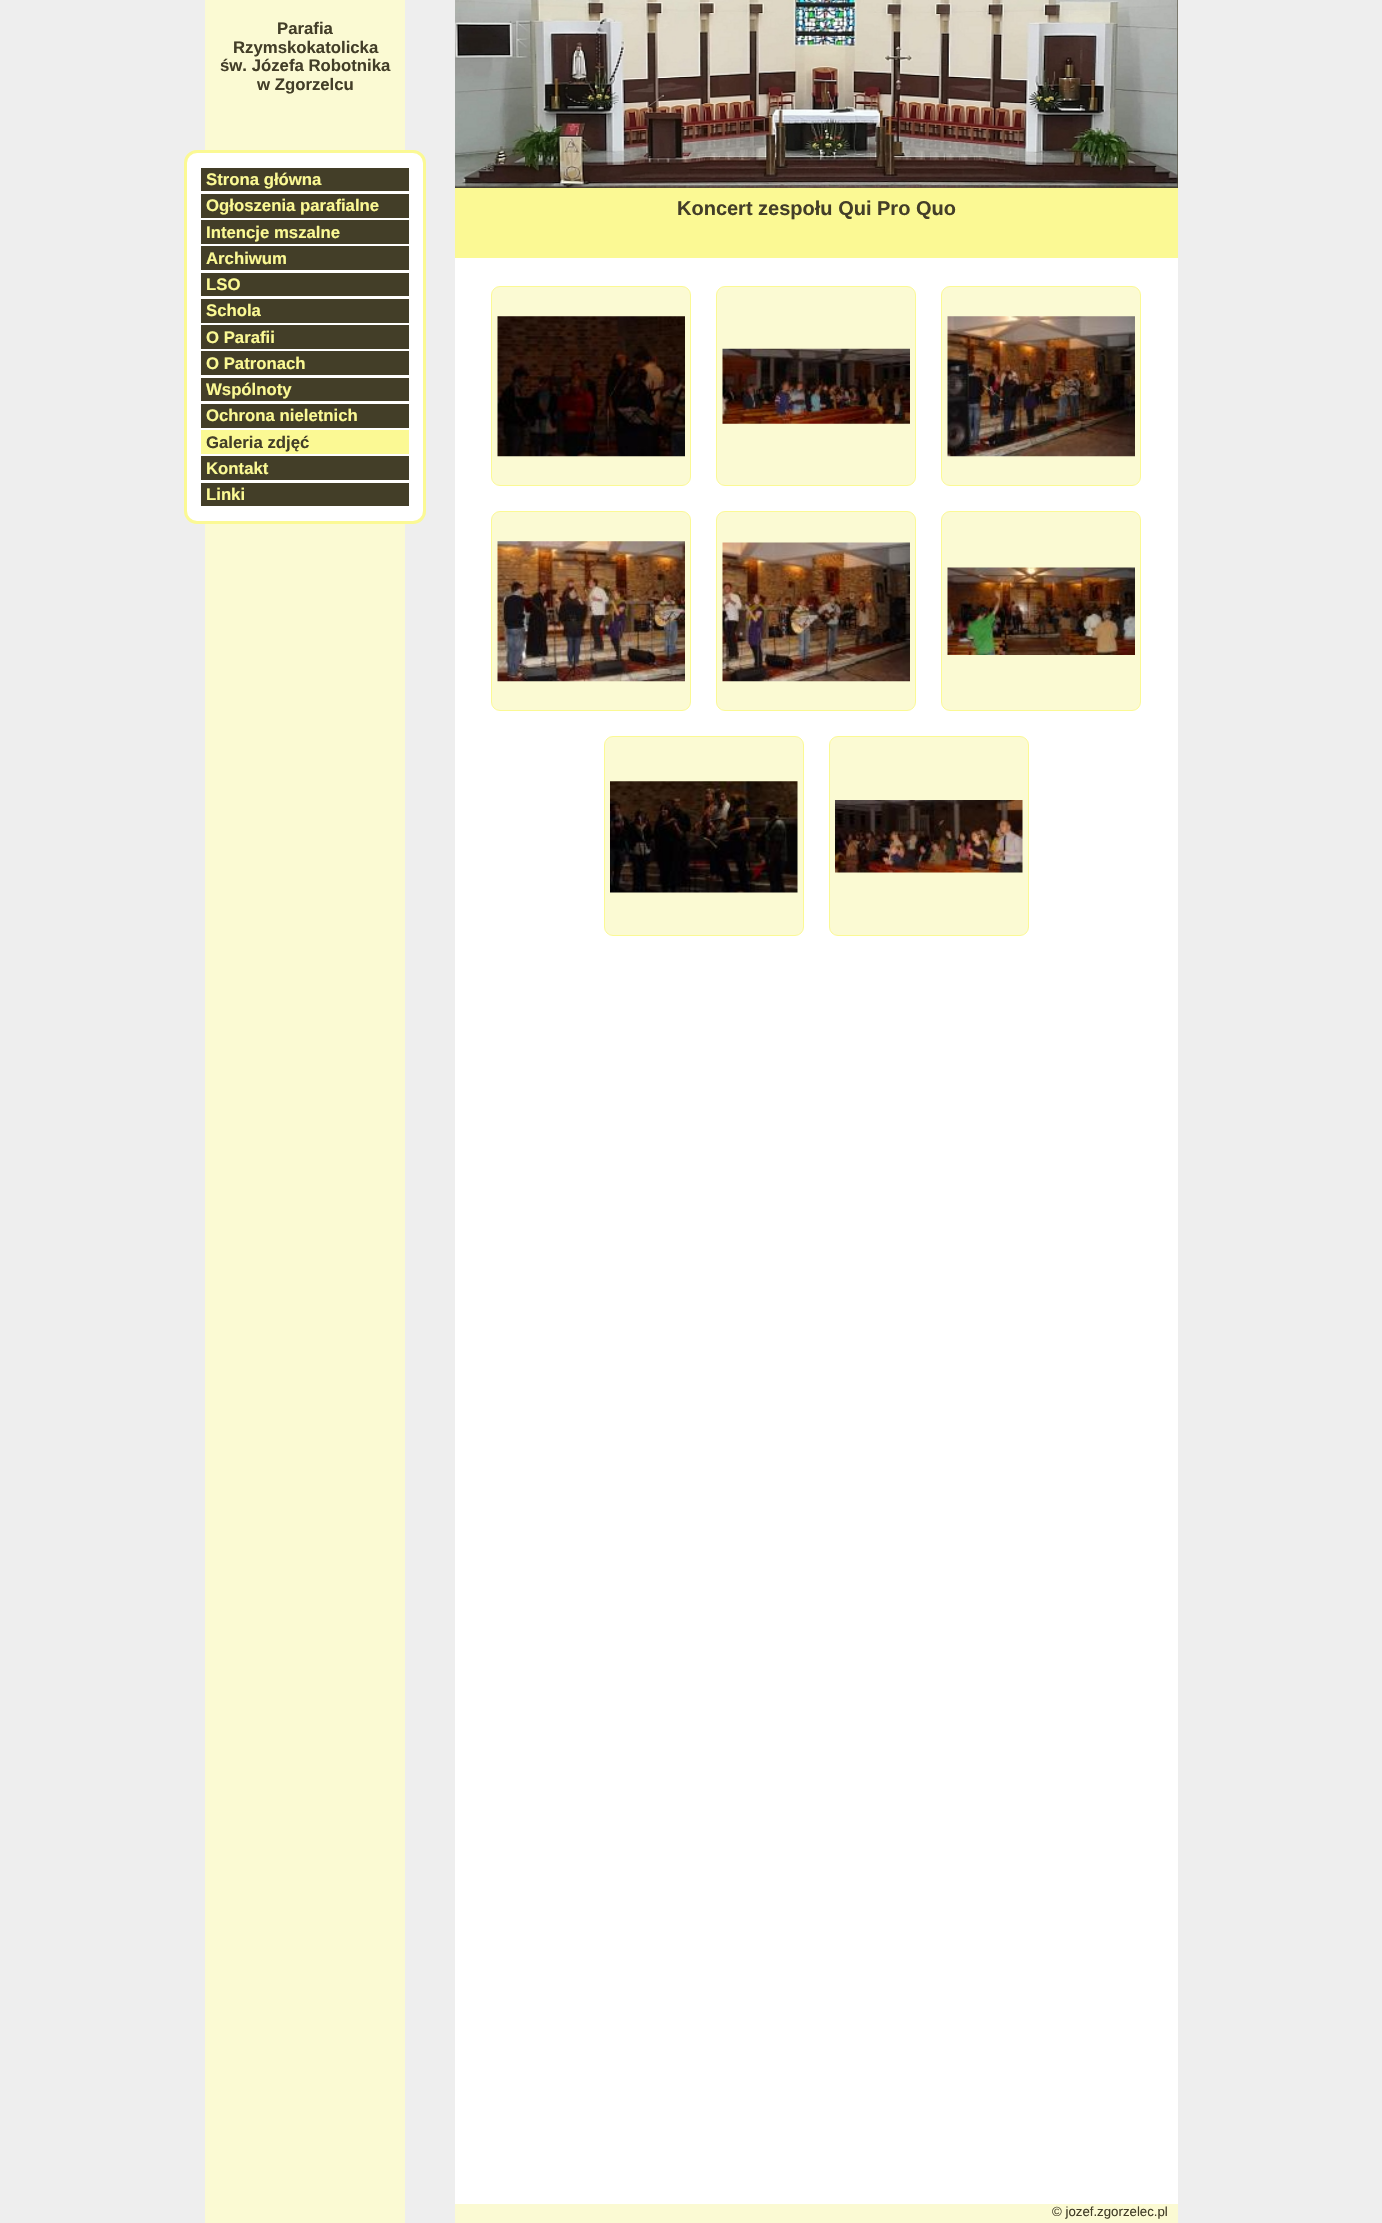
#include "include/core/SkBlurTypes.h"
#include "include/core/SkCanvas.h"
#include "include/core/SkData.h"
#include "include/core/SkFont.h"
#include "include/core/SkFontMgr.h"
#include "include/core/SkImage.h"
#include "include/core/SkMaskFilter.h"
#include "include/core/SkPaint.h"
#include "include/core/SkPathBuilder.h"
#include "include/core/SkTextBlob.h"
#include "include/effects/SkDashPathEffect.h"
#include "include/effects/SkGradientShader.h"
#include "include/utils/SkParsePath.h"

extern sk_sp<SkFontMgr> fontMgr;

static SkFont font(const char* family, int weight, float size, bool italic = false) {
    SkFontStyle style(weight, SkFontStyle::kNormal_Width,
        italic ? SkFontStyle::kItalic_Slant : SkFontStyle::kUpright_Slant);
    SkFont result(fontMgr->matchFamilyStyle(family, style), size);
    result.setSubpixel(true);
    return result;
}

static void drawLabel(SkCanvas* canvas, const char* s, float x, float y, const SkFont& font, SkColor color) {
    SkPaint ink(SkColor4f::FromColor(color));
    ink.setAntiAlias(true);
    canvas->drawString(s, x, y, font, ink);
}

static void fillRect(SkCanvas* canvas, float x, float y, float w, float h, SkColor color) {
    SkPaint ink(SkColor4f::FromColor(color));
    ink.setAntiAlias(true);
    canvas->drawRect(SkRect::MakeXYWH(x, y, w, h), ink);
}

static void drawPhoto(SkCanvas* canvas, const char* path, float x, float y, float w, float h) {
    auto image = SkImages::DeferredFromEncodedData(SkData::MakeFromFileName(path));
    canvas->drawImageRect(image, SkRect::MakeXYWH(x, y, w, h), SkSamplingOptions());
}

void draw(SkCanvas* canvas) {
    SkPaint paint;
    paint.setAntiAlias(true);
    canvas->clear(0xFFEEEEEE);
    fillRect(canvas, 205, 0, 200, 2223, 0xFFFBFAD3);
    SkFont font1 = font("Liberation Sans", 700, 16.75f);
    drawLabel(canvas, "Parafia", 277, 34, font1, 0xFF433E28);
    drawLabel(canvas, "Rzymskokatolicka", 233, 53, font1, 0xFF433E28);
    drawLabel(canvas, "św. Józefa Robotnika", 220, 71, font1, 0xFF433E28);
    drawLabel(canvas, "w Zgorzelcu", 257, 90, font1, 0xFF433E28);
    paint.setColor(0xFFFFFFFF);
    canvas->drawRoundRect(SkRect::MakeXYWH(185.5f, 151.5f, 239, 371), 11.5f, 11.5f, paint);
    paint.setStroke(true);
    paint.setStrokeWidth(3);
    paint.setColor(0xFFFBF994);
    canvas->drawRoundRect(SkRect::MakeXYWH(185.5f, 151.5f, 239, 371), 11.5f, 11.5f, paint);
    fillRect(canvas, 201, 168, 208, 23, 0xFF433E28);
    drawLabel(canvas, "Strona główna", 206, 185, font1, 0xFFFBF994);
    fillRect(canvas, 201, 194, 208, 24, 0xFF433E28);
    drawLabel(canvas, "Ogłoszenia parafialne", 206, 211, font1, 0xFFFBF994);
    fillRect(canvas, 201, 220, 208, 24, 0xFF433E28);
    drawLabel(canvas, "Intencje mszalne", 206, 238, font1, 0xFFFBF994);
    fillRect(canvas, 201, 246, 208, 24, 0xFF433E28);
    drawLabel(canvas, "Archiwum", 206, 264, font1, 0xFFFBF994);
    fillRect(canvas, 201, 273, 208, 23, 0xFF433E28);
    drawLabel(canvas, "LSO", 206, 290, font1, 0xFFFBF994);
    fillRect(canvas, 201, 299, 208, 24, 0xFF433E28);
    drawLabel(canvas, "Schola", 206, 316, font1, 0xFFFBF994);
    fillRect(canvas, 201, 325, 208, 24, 0xFF433E28);
    drawLabel(canvas, "O Parafii", 206, 343, font1, 0xFFFBF994);
    fillRect(canvas, 201, 351, 208, 24, 0xFF433E28);
    drawLabel(canvas, "O Patronach", 206, 369, font1, 0xFFFBF994);
    fillRect(canvas, 201, 378, 208, 23, 0xFF433E28);
    drawLabel(canvas, "Wspólnoty", 206, 395, font1, 0xFFFBF994);
    fillRect(canvas, 201, 404, 208, 24, 0xFF433E28);
    drawLabel(canvas, "Ochrona nieletnich", 206, 421, font1, 0xFFFBF994);
    fillRect(canvas, 201, 430, 208, 24, 0xFFFBF994);
    drawLabel(canvas, "Galeria zdjęć", 206, 448, font1, 0xFF433E28);
    fillRect(canvas, 201, 456, 208, 24, 0xFF433E28);
    drawLabel(canvas, "Kontakt", 206, 474, font1, 0xFFFBF994);
    fillRect(canvas, 201, 483, 208, 23, 0xFF433E28);
    drawLabel(canvas, "Linki", 206, 500, font1, 0xFFFBF994);
    fillRect(canvas, 455, 0, 723, 188, 0xFF433E28);
    drawPhoto(canvas, "assets/img1.png", 455, 0, 723, 188);
    fillRect(canvas, 455, 188, 723, 70, 0xFFFBF994);
    SkFont font2 = font("Liberation Sans", 700, 20);
    drawLabel(canvas, "Koncert zespołu Qui Pro Quo", 677, 215, font2, 0xFF433E28);
    fillRect(canvas, 455, 258, 723, 1946, 0xFFFFFFFF);
    paint.setStroke(false);
    paint.setColor(0xFFFBFAD3);
    canvas->drawRoundRect(SkRect::MakeXYWH(491.5f, 286.5f, 199, 199), 8.5f, 8.5f, paint);
    paint.setStroke(true);
    paint.setStrokeWidth(1);
    paint.setColor(0xFFFBF994);
    canvas->drawRoundRect(SkRect::MakeXYWH(491.5f, 286.5f, 199, 199), 8.5f, 8.5f, paint);
    drawPhoto(canvas, "assets/img2.png", 497, 316, 188, 141);
    paint.setStroke(false);
    paint.setColor(0xFFFBFAD3);
    canvas->drawRoundRect(SkRect::MakeXYWH(716.5f, 286.5f, 199, 199), 8.5f, 8.5f, paint);
    paint.setStroke(true);
    paint.setColor(0xFFFBF994);
    canvas->drawRoundRect(SkRect::MakeXYWH(716.5f, 286.5f, 199, 199), 8.5f, 8.5f, paint);
    drawPhoto(canvas, "assets/img3.png", 722, 348, 188, 76);
    paint.setStroke(false);
    paint.setColor(0xFFFBFAD3);
    canvas->drawRoundRect(SkRect::MakeXYWH(941.5f, 286.5f, 199, 199), 8.5f, 8.5f, paint);
    paint.setStroke(true);
    paint.setColor(0xFFFBF994);
    canvas->drawRoundRect(SkRect::MakeXYWH(941.5f, 286.5f, 199, 199), 8.5f, 8.5f, paint);
    drawPhoto(canvas, "assets/img4.png", 947, 316, 188, 141);
    paint.setStroke(false);
    paint.setColor(0xFFFBFAD3);
    canvas->drawRoundRect(SkRect::MakeXYWH(491.5f, 511.5f, 199, 199), 8.5f, 8.5f, paint);
    paint.setStroke(true);
    paint.setColor(0xFFFBF994);
    canvas->drawRoundRect(SkRect::MakeXYWH(491.5f, 511.5f, 199, 199), 8.5f, 8.5f, paint);
    drawPhoto(canvas, "assets/img5.png", 497, 541, 188, 141);
    paint.setStroke(false);
    paint.setColor(0xFFFBFAD3);
    canvas->drawRoundRect(SkRect::MakeXYWH(716.5f, 511.5f, 199, 199), 8.5f, 8.5f, paint);
    paint.setStroke(true);
    paint.setColor(0xFFFBF994);
    canvas->drawRoundRect(SkRect::MakeXYWH(716.5f, 511.5f, 199, 199), 8.5f, 8.5f, paint);
    drawPhoto(canvas, "assets/img6.png", 722, 542, 188, 140);
    paint.setStroke(false);
    paint.setColor(0xFFFBFAD3);
    canvas->drawRoundRect(SkRect::MakeXYWH(941.5f, 511.5f, 199, 199), 8.5f, 8.5f, paint);
    paint.setStroke(true);
    paint.setColor(0xFFFBF994);
    canvas->drawRoundRect(SkRect::MakeXYWH(941.5f, 511.5f, 199, 199), 8.5f, 8.5f, paint);
    drawPhoto(canvas, "assets/img7.png", 947, 567, 188, 88);
    paint.setStroke(false);
    paint.setColor(0xFFFBFAD3);
    canvas->drawRoundRect(SkRect::MakeXYWH(604.5f, 736.5f, 199, 199), 8.5f, 8.5f, paint);
    paint.setStroke(true);
    paint.setColor(0xFFFBF994);
    canvas->drawRoundRect(SkRect::MakeXYWH(604.5f, 736.5f, 199, 199), 8.5f, 8.5f, paint);
    drawPhoto(canvas, "assets/img8.png", 610, 781, 188, 112);
    paint.setStroke(false);
    paint.setColor(0xFFFBFAD3);
    canvas->drawRoundRect(SkRect::MakeXYWH(829.5f, 736.5f, 199, 199), 8.5f, 8.5f, paint);
    paint.setStroke(true);
    paint.setColor(0xFFFBF994);
    canvas->drawRoundRect(SkRect::MakeXYWH(829.5f, 736.5f, 199, 199), 8.5f, 8.5f, paint);
    drawPhoto(canvas, "assets/img9.png", 835, 800, 188, 73);
    fillRect(canvas, 455, 2204, 723, 19, 0xFFFBFAD3);
    SkFont font3 = font("Liberation Sans", 400, 13.25f);
    drawLabel(canvas, "© jozef.zgorzelec.pl", 1052, 2216, font3, 0xFF433E28);
}
